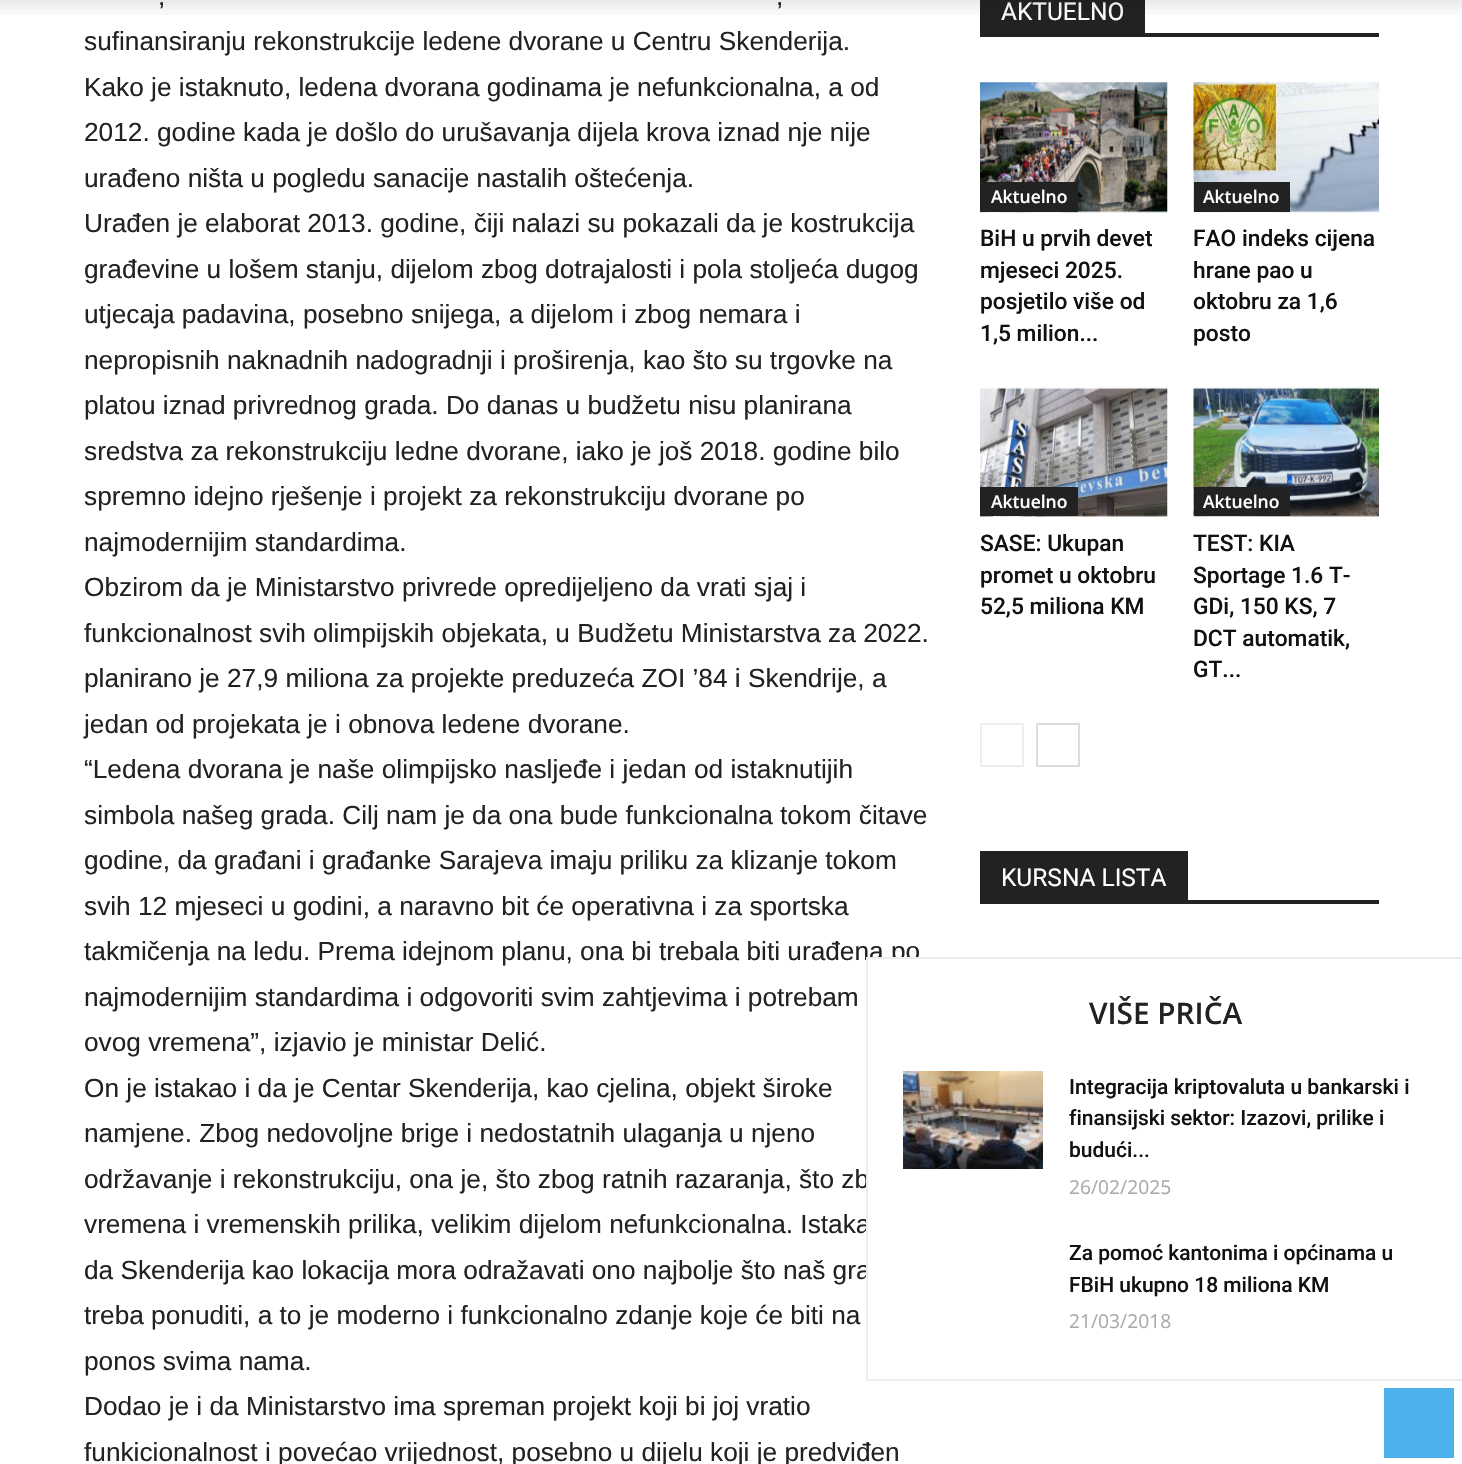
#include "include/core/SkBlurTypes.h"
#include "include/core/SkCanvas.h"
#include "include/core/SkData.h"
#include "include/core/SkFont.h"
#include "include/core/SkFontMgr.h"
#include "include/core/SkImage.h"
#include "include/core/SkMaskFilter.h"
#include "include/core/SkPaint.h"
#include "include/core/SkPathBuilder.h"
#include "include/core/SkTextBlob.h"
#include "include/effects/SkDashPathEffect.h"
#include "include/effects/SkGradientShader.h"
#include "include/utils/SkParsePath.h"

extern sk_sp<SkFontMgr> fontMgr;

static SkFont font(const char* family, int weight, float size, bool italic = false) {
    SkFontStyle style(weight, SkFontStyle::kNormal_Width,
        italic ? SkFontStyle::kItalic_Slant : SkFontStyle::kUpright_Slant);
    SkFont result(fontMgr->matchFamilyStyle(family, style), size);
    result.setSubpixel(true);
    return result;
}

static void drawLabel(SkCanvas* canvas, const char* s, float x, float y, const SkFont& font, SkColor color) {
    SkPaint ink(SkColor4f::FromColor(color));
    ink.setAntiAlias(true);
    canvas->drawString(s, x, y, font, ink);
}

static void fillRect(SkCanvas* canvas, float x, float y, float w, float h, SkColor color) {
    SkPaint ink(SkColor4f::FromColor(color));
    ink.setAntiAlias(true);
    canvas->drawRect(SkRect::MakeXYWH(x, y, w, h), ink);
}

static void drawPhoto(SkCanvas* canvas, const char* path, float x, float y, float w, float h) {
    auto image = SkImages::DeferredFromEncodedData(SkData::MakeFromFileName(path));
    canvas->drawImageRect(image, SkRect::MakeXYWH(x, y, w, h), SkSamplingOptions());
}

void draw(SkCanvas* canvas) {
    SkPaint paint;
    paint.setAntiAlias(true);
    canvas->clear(0xFFFFFFFF);
    SkFont font1 = font("Liberation Sans", 400, 26.25f);
    drawLabel(canvas, ",", 158, 5, font1, 0xFF222222);
    drawLabel(canvas, ",", 776, 5, font1, 0xFF222222);
    fillRect(canvas, 980, 0, 165, 33, 0xFF222222);
    SkFont font2 = font("Roboto", 400, 24.5f);
    drawLabel(canvas, "AKTUELNO", 1001, 20, font2, 0xFFFFFFFF);
    drawPhoto(canvas, "assets/img1.png", 0, 0, 1462, 15);
    drawLabel(canvas, "sufinansiranju rekonstrukcije ledene dvorane u Centru Skenderija.", 84, 50, font1, 0xFF222222);
    drawLabel(canvas, "Kako je istaknuto, ledena dvorana godinama je nefunkcionalna, a od", 84, 96, font1, 0xFF222222);
    drawLabel(canvas, "2012. godine kada je došlo do urušavanja dijela krova iznad nje nije", 84, 141, font1, 0xFF222222);
    drawLabel(canvas, "urađeno ništa u pogledu sanacije nastalih oštećenja.", 84, 187, font1, 0xFF222222);
    drawLabel(canvas, "Urađen je elaborat 2013. godine, čiji nalazi su pokazali da je kostrukcija", 84, 232, font1, 0xFF222222);
    drawLabel(canvas, "građevine u lošem stanju, dijelom zbog dotrajalosti i pola stoljeća dugog", 84, 278, font1, 0xFF222222);
    drawLabel(canvas, "utjecaja padavina, posebno snijega, a dijelom i zbog nemara i", 84, 323, font1, 0xFF222222);
    drawLabel(canvas, "nepropisnih naknadnih nadogradnji i proširenja, kao što su trgovke na", 84, 369, font1, 0xFF222222);
    drawLabel(canvas, "platou iznad privrednog grada. Do danas u budžetu nisu planirana", 84, 414, font1, 0xFF222222);
    drawLabel(canvas, "sredstva za rekonstrukciju ledne dvorane, iako je još 2018. godine bilo", 84, 460, font1, 0xFF222222);
    drawLabel(canvas, "spremno idejno rješenje i projekt za rekonstrukciju dvorane po", 84, 505, font1, 0xFF222222);
    drawLabel(canvas, "najmodernijim standardima.", 84, 551, font1, 0xFF222222);
    drawLabel(canvas, "Obzirom da je Ministarstvo privrede opredijeljeno da vrati sjaj i", 84, 596, font1, 0xFF222222);
    drawLabel(canvas, "funkcionalnost svih olimpijskih objekata, u Budžetu Ministarstva za 2022.", 84, 642, font1, 0xFF222222);
    drawLabel(canvas, "planirano je 27,9 miliona za projekte preduzeća ZOI ’84 i Skendrije, a", 84, 687, font1, 0xFF222222);
    drawLabel(canvas, "jedan od projekata je i obnova ledene dvorane.", 84, 733, font1, 0xFF222222);
    drawLabel(canvas, "“Ledena dvorana je naše olimpijsko nasljeđe i jedan od istaknutijih", 84, 778, font1, 0xFF222222);
    drawLabel(canvas, "simbola našeg grada. Cilj nam je da ona bude funkcionalna tokom čitave", 84, 824, font1, 0xFF222222);
    drawLabel(canvas, "godine, da građani i građanke Sarajeva imaju priliku za klizanje tokom", 84, 869, font1, 0xFF222222);
    drawLabel(canvas, "svih 12 mjeseci u godini, a naravno bit će operativna i za sportska", 84, 915, font1, 0xFF222222);
    drawLabel(canvas, "takmičenja na ledu. Prema idejnom planu, ona bi trebala biti urađena po", 84, 960, font1, 0xFF222222);
    drawLabel(canvas, "najmodernijim standardima i odgovoriti svim zahtjevima i potrebam", 84, 1006, font1, 0xFF222222);
    drawLabel(canvas, "ovog vremena”, izjavio je ministar Delić.", 84, 1051, font1, 0xFF222222);
    drawLabel(canvas, "On je istakao i da je Centar Skenderija, kao cjelina, objekt široke", 84, 1097, font1, 0xFF222222);
    drawLabel(canvas, "namjene. Zbog nedovoljne brige i nedostatnih ulaganja u njeno", 84, 1142, font1, 0xFF222222);
    drawLabel(canvas, "održavanje i rekonstrukciju, ona je, što zbog ratnih razaranja, što zb", 84, 1188, font1, 0xFF222222);
    drawLabel(canvas, "vremena i vremenskih prilika, velikim dijelom nefunkcionalna. Istaka", 84, 1233, font1, 0xFF222222);
    drawLabel(canvas, "da Skenderija kao lokacija mora odražavati ono najbolje što naš gra", 84, 1279, font1, 0xFF222222);
    drawLabel(canvas, "treba ponuditi, a to je moderno i funkcionalno zdanje koje će biti na", 84, 1324, font1, 0xFF222222);
    drawLabel(canvas, "ponos svima nama.", 84, 1370, font1, 0xFF222222);
    drawLabel(canvas, "Dodao je i da Ministarstvo ima spreman projekt koji bi joj vratio", 84, 1415, font1, 0xFF222222);
    drawLabel(canvas, "funkicionalnost i povećao vrijednost, posebno u dijelu koji je predviđen", 84, 1461, font1, 0xFF222222);
    fillRect(canvas, 980, 33, 399, 4, 0xFF222222);
    drawPhoto(canvas, "assets/img2.png", 980, 82, 188, 131);
    fillRect(canvas, 980, 182, 98, 30, 0xFF222222);
    SkFont font3 = font("Open Sans", 600, 17.5f);
    drawLabel(canvas, "Aktuelno", 991, 203, font3, 0xFFFFFFFF);
    SkFont font4 = font("Roboto", 500, 22.75f);
    drawLabel(canvas, "BiH u prvih devet", 980, 246, font4, 0xFF111111);
    drawLabel(canvas, "mjeseci 2025.", 980, 278, font4, 0xFF111111);
    drawLabel(canvas, "posjetilo više od", 980, 309, font4, 0xFF111111);
    drawLabel(canvas, "1,5 milion...", 980, 341, font4, 0xFF111111);
    drawPhoto(canvas, "assets/img3.png", 1193, 82, 186, 131);
    fillRect(canvas, 1194, 182, 96, 30, 0xFF222222);
    drawLabel(canvas, "Aktuelno", 1203, 203, font3, 0xFFFFFFFF);
    drawLabel(canvas, "FAO indeks cijena", 1193, 246, font4, 0xFF111111);
    drawLabel(canvas, "hrane pao u", 1193, 278, font4, 0xFF111111);
    drawLabel(canvas, "oktobru za 1,6", 1193, 309, font4, 0xFF111111);
    drawLabel(canvas, "posto", 1193, 341, font4, 0xFF111111);
    drawPhoto(canvas, "assets/img4.png", 980, 387, 188, 130);
    fillRect(canvas, 980, 487, 98, 29, 0xFF222222);
    drawLabel(canvas, "Aktuelno", 991, 508, font3, 0xFFFFFFFF);
    drawLabel(canvas, "SASE: Ukupan", 980, 551, font4, 0xFF111111);
    drawLabel(canvas, "promet u oktobru", 980, 583, font4, 0xFF111111);
    drawLabel(canvas, "52,5 miliona KM", 980, 614, font4, 0xFF111111);
    drawPhoto(canvas, "assets/img5.png", 1193, 387, 186, 130);
    fillRect(canvas, 1194, 487, 96, 29, 0xFF222222);
    drawLabel(canvas, "Aktuelno", 1203, 508, font3, 0xFFFFFFFF);
    drawLabel(canvas, "TEST: KIA", 1193, 551, font4, 0xFF111111);
    drawLabel(canvas, "Sportage 1.6 T-", 1193, 583, font4, 0xFF111111);
    drawLabel(canvas, "GDi, 150 KS, 7", 1193, 614, font4, 0xFF111111);
    drawLabel(canvas, "DCT automatik,", 1193, 646, font4, 0xFF111111);
    drawLabel(canvas, "GT...", 1193, 677, font4, 0xFF111111);
    paint.setStroke(true);
    paint.setStrokeWidth(2);
    paint.setColor(0xFFEEEEEE);
    canvas->drawRect(SkRect::MakeXYWH(981, 724, 42, 42), paint);
    paint.setColor(0xFFDCDCDC);
    canvas->drawRect(SkRect::MakeXYWH(1037, 724, 42, 42), paint);
    fillRect(canvas, 980, 900, 399, 4, 0xFF222222);
    fillRect(canvas, 980, 851, 208, 49, 0xFF222222);
    drawLabel(canvas, "KURSNA LISTA", 1001, 886, font2, 0xFFFFFFFF);
    fillRect(canvas, 868, 959, 49, 321, 0xFFFFFFFF);
    fillRect(canvas, 866, 957, 596, 2, 0xFFEDEDED);
    fillRect(canvas, 866, 1379, 596, 2, 0xFFEDEDED);
    fillRect(canvas, 866, 957, 2, 424, 0xFFEDEDED);
    SkFont font5 = font("Open Sans", 600, 29.75f);
    drawLabel(canvas, "VIŠE PRIČA", 1089, 1024, font5, 0xFF222222);
    drawPhoto(canvas, "assets/img6.png", 903, 1071, 140, 98);
    SkFont font6 = font("Roboto", 500, 21);
    drawLabel(canvas, "Integracija kriptovaluta u bankarski i", 1069, 1094, font6, 0xFF111111);
    drawLabel(canvas, "finansijski sektor: Izazovi, prilike i", 1069, 1125, font6, 0xFF111111);
    drawLabel(canvas, "budući...", 1069, 1157, font6, 0xFF111111);
    SkFont font7 = font("Open Sans", 400, 19.25f);
    drawLabel(canvas, "26/02/2025", 1069, 1194, font7, 0xFFAAAAAA);
    drawLabel(canvas, "Za pomoć kantonima i općinama u", 1069, 1260, font6, 0xFF111111);
    drawLabel(canvas, "FBiH ukupno 18 miliona KM", 1069, 1292, font6, 0xFF111111);
    drawLabel(canvas, "21/03/2018", 1069, 1328, font7, 0xFFAAAAAA);
    fillRect(canvas, 1384, 1388, 70, 70, 0xFF4DB2EC);
}
